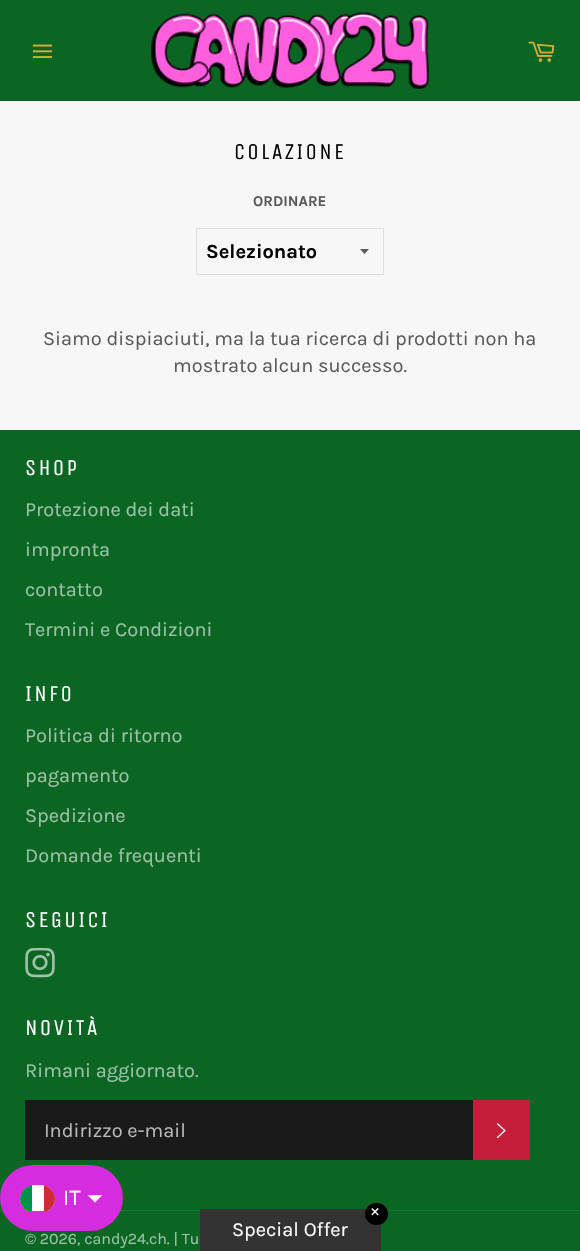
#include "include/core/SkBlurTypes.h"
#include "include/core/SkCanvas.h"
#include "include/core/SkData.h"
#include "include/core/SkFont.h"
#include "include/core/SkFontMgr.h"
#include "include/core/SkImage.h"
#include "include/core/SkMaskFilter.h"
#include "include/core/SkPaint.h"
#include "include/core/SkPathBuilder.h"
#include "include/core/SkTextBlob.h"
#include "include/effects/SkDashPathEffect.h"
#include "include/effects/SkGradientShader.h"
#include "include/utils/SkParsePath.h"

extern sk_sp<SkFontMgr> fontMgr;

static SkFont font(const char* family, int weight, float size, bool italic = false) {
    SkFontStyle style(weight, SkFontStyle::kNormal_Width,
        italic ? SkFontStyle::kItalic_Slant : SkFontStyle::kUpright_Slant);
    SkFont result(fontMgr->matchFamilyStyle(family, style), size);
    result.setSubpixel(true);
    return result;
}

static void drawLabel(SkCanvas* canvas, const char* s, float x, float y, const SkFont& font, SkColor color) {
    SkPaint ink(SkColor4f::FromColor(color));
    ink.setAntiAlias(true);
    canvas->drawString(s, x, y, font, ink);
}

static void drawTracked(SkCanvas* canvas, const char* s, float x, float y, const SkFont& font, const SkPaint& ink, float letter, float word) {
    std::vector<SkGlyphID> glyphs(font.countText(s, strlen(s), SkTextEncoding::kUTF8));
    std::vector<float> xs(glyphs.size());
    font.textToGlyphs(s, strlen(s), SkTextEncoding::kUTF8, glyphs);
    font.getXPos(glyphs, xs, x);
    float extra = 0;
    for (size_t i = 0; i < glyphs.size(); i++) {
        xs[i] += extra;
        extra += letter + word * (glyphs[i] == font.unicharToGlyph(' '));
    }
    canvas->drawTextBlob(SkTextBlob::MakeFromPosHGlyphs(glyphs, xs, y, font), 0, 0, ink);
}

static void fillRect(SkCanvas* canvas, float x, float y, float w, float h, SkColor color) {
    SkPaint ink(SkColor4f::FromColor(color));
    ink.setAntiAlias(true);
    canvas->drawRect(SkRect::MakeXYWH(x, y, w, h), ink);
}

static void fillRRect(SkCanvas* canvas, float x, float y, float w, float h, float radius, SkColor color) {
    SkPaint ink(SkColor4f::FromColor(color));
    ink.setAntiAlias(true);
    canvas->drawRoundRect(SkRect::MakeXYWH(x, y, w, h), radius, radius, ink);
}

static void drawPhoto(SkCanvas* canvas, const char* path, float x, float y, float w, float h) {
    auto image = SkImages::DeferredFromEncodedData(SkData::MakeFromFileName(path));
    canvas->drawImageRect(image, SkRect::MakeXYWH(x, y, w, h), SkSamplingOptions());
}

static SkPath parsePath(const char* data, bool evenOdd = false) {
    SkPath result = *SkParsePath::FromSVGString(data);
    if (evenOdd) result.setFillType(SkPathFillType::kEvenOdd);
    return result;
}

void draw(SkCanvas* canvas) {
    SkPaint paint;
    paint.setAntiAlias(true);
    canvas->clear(0xFFF7F7F7);
    fillRect(canvas, 0, 0, 580, 101, 0xFF0B6623);
    drawPhoto(canvas, "assets/img1.png", 32, 44, 21, 14);
    drawPhoto(canvas, "assets/img2.png", 151, 12, 278, 77);
    drawPhoto(canvas, "assets/img3.png", 528, 41, 27, 21);
    SkFont font1 = font("Unica One", 400, 22.5f);
    paint.setColor(0xFF000000);
    drawTracked(canvas, "COLAZIONE", 234, 159, font1, paint, 2.25f, 0);
    SkFont font2 = font("Karla", 700, 15);
    drawLabel(canvas, "ORDINARE", 253, 206, font2, 0xFF5A5A5A);
    paint.setColor(0xFF5A5A5A);
    canvas->drawPath(parsePath("M360 249L364.5 254L369 249Z"), paint);
    paint.setStroke(true);
    paint.setStrokeWidth(1);
    paint.setColor(0xFFDEDEDE);
    canvas->drawRect(SkRect::MakeXYWH(196.5f, 228.5f, 187, 46), paint);
    SkFont font3 = font("Karla", 700, 20);
    drawLabel(canvas, "Selezionato", 206, 258, font3, 0xFF000000);
    SkFont font4 = font("Karla", 400, 20);
    drawLabel(canvas, "Siamo dispiaciuti, ma la tua ricerca di prodotti non ha", 43, 345, font4, 0xFF5A5A5A);
    drawLabel(canvas, "mostrato alcun successo.", 173, 372, font4, 0xFF5A5A5A);
    fillRect(canvas, 0, 430, 580, 821, 0xFF0B6623);
    paint.setStroke(false);
    paint.setColor(0xFFFFFFFF);
    drawTracked(canvas, "SHOP", 25, 475, font1, paint, 2.25f, 0);
    drawLabel(canvas, "Protezione dei dati", 25, 516, font4, 0xFF9DC2A7);
    drawLabel(canvas, "impronta", 25, 556, font4, 0xFF9DC2A7);
    drawLabel(canvas, "contatto", 25, 596, font4, 0xFF9DC2A7);
    drawLabel(canvas, "Termini e Condizioni", 25, 636, font4, 0xFF9DC2A7);
    drawTracked(canvas, "INFO", 25, 701, font1, paint, 2.25f, 0);
    drawLabel(canvas, "Politica di ritorno", 25, 742, font4, 0xFF9DC2A7);
    drawLabel(canvas, "pagamento", 25, 782, font4, 0xFF9DC2A7);
    drawLabel(canvas, "Spedizione", 25, 822, font4, 0xFF9DC2A7);
    drawLabel(canvas, "Domande frequenti", 25, 862, font4, 0xFF9DC2A7);
    drawTracked(canvas, "SEGUICI", 25, 927, font1, paint, 2.25f, 0);
    drawPhoto(canvas, "assets/img4.png", 25, 948, 30, 30);
    drawTracked(canvas, "NOVITÀ", 25, 1035, font1, paint, 2.25f, 0);
    drawLabel(canvas, "Rimani aggiornato.", 25, 1077, font4, 0xFF9DC2A7);
    fillRect(canvas, 25, 1100, 448, 60, 0xFF1A1A1A);
    drawLabel(canvas, "Indirizzo e-mail", 44, 1137, font4, 0xFFBABABA);
    fillRect(canvas, 473, 1100, 57, 60, 0xFFC41E3A);
    drawPhoto(canvas, "assets/img5.png", 496, 1123, 10, 16);
    fillRect(canvas, 0, 1210, 580, 1, 0xFF0D7D2B);
    SkFont font5 = font("Karla", 400, 16);
    drawLabel(canvas, "© 2026, candy24.ch. | Tu", 25, 1244, font5, 0xFF9DC2A7);
    fillRRect(canvas, 0, 1165, 123, 66, 33, 0xFFD52CDF);
    canvas->save();
    canvas->clipPath(parsePath("M34 1185H41C48.5 1185 55 1191.5 55 1199C55 1206.5 48.5 1213 41 1213H34C26.5 1213 20 1206.5 20 1199C20 1191.5 26.5 1185 34 1185Z"), true);
    canvas->drawPath(parsePath("M34 1185H41C48.5 1185 55 1191.5 55 1199V1211H20V1199C20 1191.5 26.5 1185 34 1185Z"), paint);
    fillRect(canvas, 20, 1185, 12, 26, 0xFF009246);
    fillRect(canvas, 44, 1185, 11, 26, 0xFFCE2B37);
    canvas->restore();
    SkFont font6 = font("Karla", 400, 22.5f);
    drawLabel(canvas, "IT", 63, 1205, font6, 0xFFFFFFFF);
    canvas->drawPath(parsePath("M87.5 1195H102.5L95 1202.5Z"), paint);
    fillRect(canvas, 200, 1209, 181, 42, 0xFF333333);
    fillRRect(canvas, 365, 1203, 23, 22, 11, 0xFF000000);
    SkFont font7 = font("DejaVu Sans", 400, 12);
    drawLabel(canvas, "✕", 370, 1216, font7, 0xFFFFFFFF);
    drawLabel(canvas, "Special Offer", 232, 1236, font4, 0xFFFFFFFF);
}
